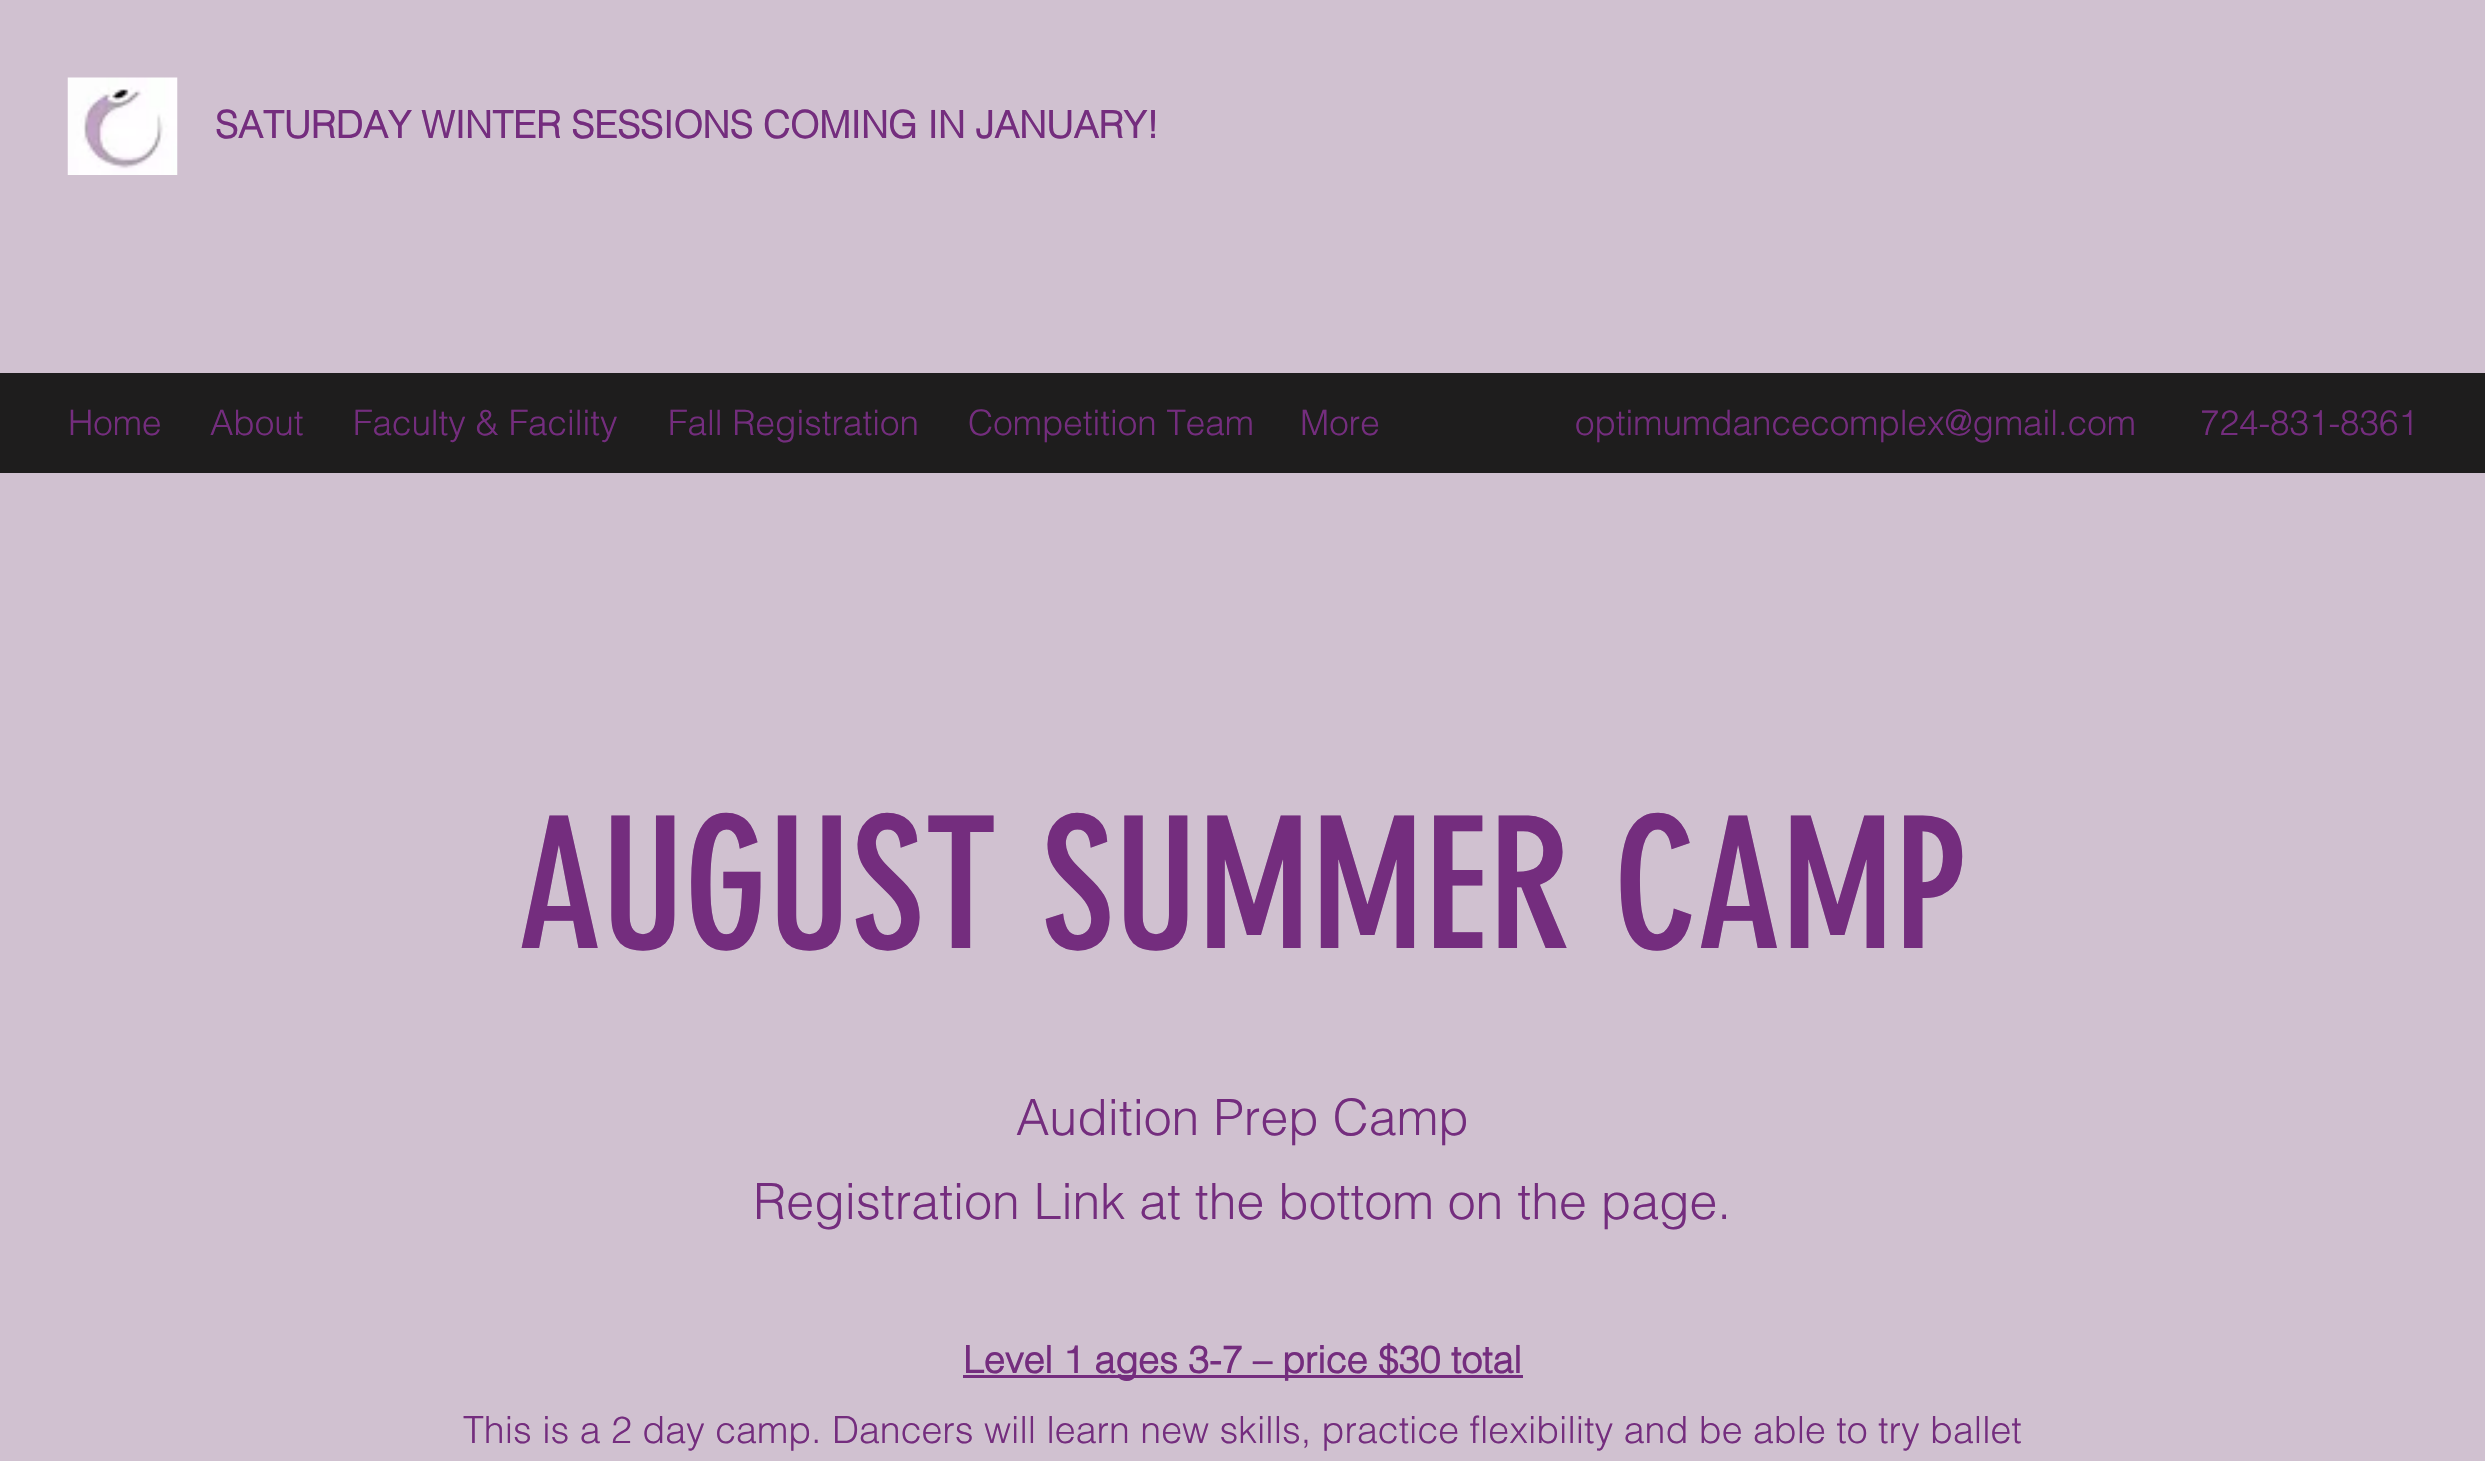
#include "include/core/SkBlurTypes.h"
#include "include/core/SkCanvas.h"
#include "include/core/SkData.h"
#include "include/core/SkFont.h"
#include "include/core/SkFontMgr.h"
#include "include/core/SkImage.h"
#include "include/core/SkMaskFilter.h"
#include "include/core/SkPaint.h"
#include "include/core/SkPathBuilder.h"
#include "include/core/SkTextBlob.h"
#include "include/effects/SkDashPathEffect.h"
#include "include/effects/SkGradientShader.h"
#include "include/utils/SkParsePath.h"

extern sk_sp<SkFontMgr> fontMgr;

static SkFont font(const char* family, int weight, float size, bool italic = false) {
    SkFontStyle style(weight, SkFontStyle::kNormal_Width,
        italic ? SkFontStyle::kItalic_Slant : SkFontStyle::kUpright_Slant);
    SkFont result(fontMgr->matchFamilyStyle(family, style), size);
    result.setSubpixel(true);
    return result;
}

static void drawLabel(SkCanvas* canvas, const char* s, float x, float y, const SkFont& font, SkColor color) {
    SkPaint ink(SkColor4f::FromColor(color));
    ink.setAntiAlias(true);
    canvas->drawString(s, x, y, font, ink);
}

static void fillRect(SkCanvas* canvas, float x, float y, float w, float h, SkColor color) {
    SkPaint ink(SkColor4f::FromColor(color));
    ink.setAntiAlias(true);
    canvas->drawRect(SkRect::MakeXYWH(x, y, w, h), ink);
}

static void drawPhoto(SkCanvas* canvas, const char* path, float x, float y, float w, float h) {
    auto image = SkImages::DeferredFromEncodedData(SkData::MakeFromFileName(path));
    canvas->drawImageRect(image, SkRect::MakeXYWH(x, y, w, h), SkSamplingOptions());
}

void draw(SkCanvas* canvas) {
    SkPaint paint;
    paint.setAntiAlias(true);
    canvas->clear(0xFFD0C1D0);
    drawPhoto(canvas, "assets/img1.png", 67, 77, 111, 98);
    SkFont font1 = font("helvetica", 700, 37.5f);
    drawLabel(canvas, "SATURDAY WINTER SESSIONS COMING IN JANUARY!", 215, 138, font1, 0xFF742D7E);
    fillRect(canvas, 0, 373, 2485, 100, 0xFF1E1D1D);
    SkFont font2 = font("helvetica", 300, 35);
    drawLabel(canvas, "Home", 68, 435, font2, 0xFF742D7E);
    drawLabel(canvas, "About", 210, 435, font2, 0xFF742D7E);
    drawLabel(canvas, "Faculty & Facility", 353, 435, font2, 0xFF742D7E);
    drawLabel(canvas, "Fall Registration", 668, 435, font2, 0xFF742D7E);
    drawLabel(canvas, "Competition Team", 968, 435, font2, 0xFF742D7E);
    drawLabel(canvas, "More", 1300, 435, font2, 0xFF742D7E);
    drawLabel(canvas, "optimumdancecomplex@gmail.com", 1575, 435, font2, 0xFF742D7E);
    drawLabel(canvas, "724-831-8361", 2200, 435, font2, 0xFF742D7E);
    SkFont font3 = font("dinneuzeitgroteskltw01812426", 400, 180);
    drawLabel(canvas, "AUGUST SUMMER CAMP", 518, 948, font3, 0xFF742D7E);
    SkFont font4 = font("helvetica", 300, 50);
    drawLabel(canvas, "Audition Prep Camp", 1016, 1135, font4, 0xFF742D7E);
    drawLabel(canvas, "Registration Link at the bottom on the page.", 753, 1219, font4, 0xFF742D7E);
    fillRect(canvas, 963, 1375, 560, 3, 0xFF742D7E);
    drawLabel(canvas, "Level 1 ages 3-7 – price $30 total", 963, 1373, font1, 0xFF742D7E);
    SkFont font5 = font("helvetica", 300, 37.5f);
    drawLabel(canvas, "This is a 2 day camp. Dancers will learn new skills, practice flexibility and be able to try ballet", 463, 1443, font5, 0xFF742D7E);
}
